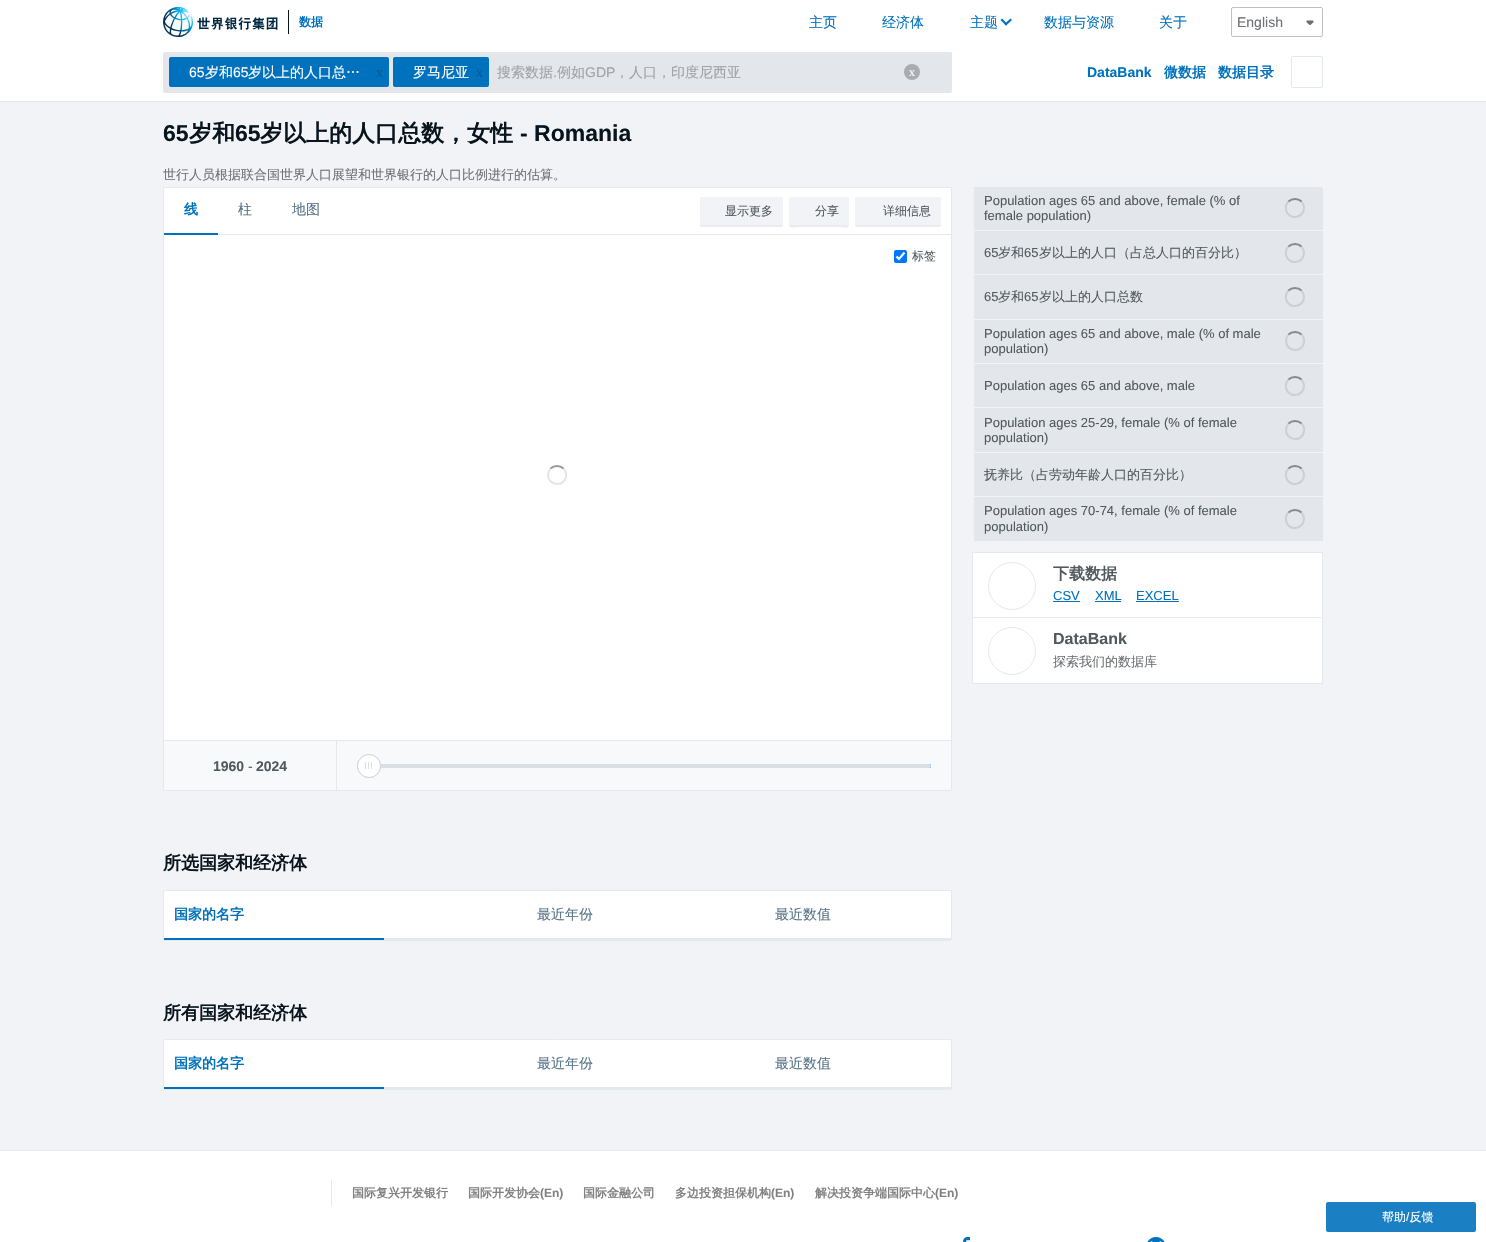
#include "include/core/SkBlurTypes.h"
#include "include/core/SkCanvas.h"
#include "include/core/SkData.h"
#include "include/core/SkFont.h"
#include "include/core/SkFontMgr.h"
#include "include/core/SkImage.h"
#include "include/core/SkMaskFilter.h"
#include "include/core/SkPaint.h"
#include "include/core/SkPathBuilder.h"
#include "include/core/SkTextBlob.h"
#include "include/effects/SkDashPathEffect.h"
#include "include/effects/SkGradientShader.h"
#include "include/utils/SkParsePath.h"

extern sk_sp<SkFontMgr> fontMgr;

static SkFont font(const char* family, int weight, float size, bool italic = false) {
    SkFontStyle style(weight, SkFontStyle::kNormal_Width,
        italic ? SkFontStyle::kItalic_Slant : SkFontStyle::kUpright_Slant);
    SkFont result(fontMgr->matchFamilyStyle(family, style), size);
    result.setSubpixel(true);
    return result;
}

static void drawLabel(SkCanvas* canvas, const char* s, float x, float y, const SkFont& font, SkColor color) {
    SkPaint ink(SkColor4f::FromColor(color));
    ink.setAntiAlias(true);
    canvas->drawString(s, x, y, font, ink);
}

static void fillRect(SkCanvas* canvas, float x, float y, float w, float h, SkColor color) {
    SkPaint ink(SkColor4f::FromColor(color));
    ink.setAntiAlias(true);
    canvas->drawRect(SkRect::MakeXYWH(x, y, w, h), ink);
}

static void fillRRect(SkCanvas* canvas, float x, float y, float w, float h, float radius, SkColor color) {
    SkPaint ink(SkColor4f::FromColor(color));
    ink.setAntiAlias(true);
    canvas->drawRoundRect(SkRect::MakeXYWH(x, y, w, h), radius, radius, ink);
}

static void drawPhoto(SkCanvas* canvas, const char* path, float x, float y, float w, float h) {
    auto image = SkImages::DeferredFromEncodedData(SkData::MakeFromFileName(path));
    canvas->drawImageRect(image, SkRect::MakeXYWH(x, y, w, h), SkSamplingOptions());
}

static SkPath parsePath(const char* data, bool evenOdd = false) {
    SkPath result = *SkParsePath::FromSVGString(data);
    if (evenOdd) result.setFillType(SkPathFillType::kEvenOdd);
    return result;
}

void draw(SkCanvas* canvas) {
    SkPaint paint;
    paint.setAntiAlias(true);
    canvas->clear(0xFFF2F3F6);
    fillRect(canvas, 0, 0, 1486, 101, 0xFFFFFFFF);
    drawPhoto(canvas, "assets/img1.png", 163, 7, 115, 30);
    fillRect(canvas, 288, 10, 1, 24, 0xFF08151E);
    SkFont font1 = font("WenQuanYi Zen Hei", 700, 12);
    drawLabel(canvas, "数据", 299, 26, font1, 0xFF0071BC);
    SkFont font2 = font("WenQuanYi Zen Hei", 500, 14);
    drawLabel(canvas, "主页", 809, 27, font2, 0xFF0071BC);
    drawLabel(canvas, "经济体", 882, 27, font2, 0xFF0071BC);
    drawLabel(canvas, "主题", 970, 27, font2, 0xFF0071BC);
    paint.setColor(0xFF0071BC);
    canvas->drawPath(parsePath("M1010.5 18.5L1012 20L1006 25.5L1004.5 24Z"), paint);
    canvas->drawPath(parsePath("M1002 18.5L1007.5 24L1006 25.5L1000.5 20Z"), paint);
    drawLabel(canvas, "数据与资源", 1044, 27, font2, 0xFF0071BC);
    drawLabel(canvas, "关于", 1159, 27, font2, 0xFF0071BC);
    drawPhoto(canvas, "assets/img2.png", 1306, 20, 8, 5);
    paint.setStroke(true);
    paint.setStrokeWidth(1);
    paint.setColor(0xFFC0C0C0);
    canvas->drawRoundRect(SkRect::MakeXYWH(1231.5f, 7.5f, 91, 29), 1.5f, 1.5f, paint);
    SkFont font3 = font("Liberation Sans", 400, 14);
    drawLabel(canvas, "English", 1237, 27, font3, 0xFF6C6F73);
    fillRect(canvas, 0, 101, 1486, 1, 0xFFE4E9EC);
    fillRRect(canvas, 163, 52, 789, 41, 2, 0xFFE3E6EB);
    fillRRect(canvas, 169, 57, 220, 30, 2, 0xFF0071BC);
    drawLabel(canvas, "65", 189, 77, font3, 0xFFFFFFFF);
    drawLabel(canvas, "岁和", 205, 77, font2, 0xFFFFFFFF);
    drawLabel(canvas, "65", 233, 77, font3, 0xFFFFFFFF);
    drawLabel(canvas, "岁以上的人口总…", 248, 77, font2, 0xFFFFFFFF);
    SkFont font4 = font("Liberation Serif", 400, 14);
    drawLabel(canvas, "x", 376, 77, font4, 0xFF005A96);
    fillRRect(canvas, 393, 57, 96, 30, 2, 0xFF0071BC);
    drawLabel(canvas, "罗马尼亚", 413, 77, font2, 0xFFFFFFFF);
    drawLabel(canvas, "x", 476, 77, font4, 0xFF005A96);
    drawLabel(canvas, "搜索数据", 497, 77, font2, 0xFFA0A2A5);
    drawLabel(canvas, ".", 553, 77, font3, 0xFFA0A2A5);
    drawLabel(canvas, "例如", 557, 77, font2, 0xFFA0A2A5);
    drawLabel(canvas, "GDP", 585, 77, font3, 0xFFA0A2A5);
    drawLabel(canvas, "，人口，印度尼西亚", 615, 77, font2, 0xFFA0A2A5);
    paint.setStroke(false);
    paint.setColor(0xFFAAADB0);
    canvas->drawCircle(912, 72, 8, paint);
    SkFont font5 = font("Liberation Serif", 400, 12);
    drawLabel(canvas, "x", 909, 76, font5, 0xFFFFFFFF);
    paint.setColor(0xFFE3E6EB);
    canvas->drawPath(parsePath("M922 52H950C951 52 952 53 952 54V90C952 91 951 92 950 92H922Z"), paint);
    SkFont font6 = font("Liberation Sans", 700, 14);
    drawLabel(canvas, "DataBank", 1087, 77, font6, 0xFF0071BC);
    SkFont font7 = font("WenQuanYi Zen Hei", 700, 14);
    drawLabel(canvas, "微数据", 1164, 77, font7, 0xFF0071BC);
    drawLabel(canvas, "数据目录", 1218, 77, font7, 0xFF0071BC);
    paint.setStroke(true);
    paint.setColor(0xFFE4E9EC);
    canvas->drawRoundRect(SkRect::MakeXYWH(1291.5f, 56.5f, 31, 31), 1.5f, 1.5f, paint);
    SkFont font8 = font("Liberation Sans", 700, 23);
    drawLabel(canvas, "65", 163, 141, font8, 0xFF08151E);
    SkFont font9 = font("WenQuanYi Zen Hei", 700, 23);
    drawLabel(canvas, "岁和", 189, 141, font9, 0xFF08151E);
    drawLabel(canvas, "65", 235, 141, font8, 0xFF08151E);
    drawLabel(canvas, "岁以上的人口总数，女性", 260, 141, font9, 0xFF08151E);
    drawLabel(canvas, "- Romania", 520, 141, font8, 0xFF08151E);
    SkFont font10 = font("WenQuanYi Zen Hei", 500, 13);
    drawLabel(canvas, "世行人员根据联合国世界人口展望和世界银行的人口比例进行的估算。", 163, 179, font10, 0xFF6C6F73);
    paint.setStroke(false);
    paint.setColor(0xFFFFFFFF);
    canvas->drawRoundRect(SkRect::MakeXYWH(163.5f, 187.5f, 788, 603), 1.5f, 1.5f, paint);
    paint.setStroke(true);
    paint.setColor(0xFFE4E9EC);
    canvas->drawRoundRect(SkRect::MakeXYWH(163.5f, 187.5f, 788, 603), 1.5f, 1.5f, paint);
    fillRect(canvas, 218, 234, 733, 1, 0xFFE4E9EC);
    fillRect(canvas, 164, 233, 54, 2, 0xFF0071BC);
    drawLabel(canvas, "线", 184, 214, font7, 0xFF0071BC);
    drawLabel(canvas, "柱", 238, 214, font2, 0xFF557387);
    drawLabel(canvas, "地图", 292, 214, font2, 0xFF557387);
    paint.setStroke(false);
    paint.setColor(0xFFEBECEF);
    canvas->drawPath(parsePath("M700 223V225C700 226 701 227 702 227H781C782 227 783 226 783 225V223C783 224 782 225 781 225H701Z"), paint);
    fillRRect(canvas, 700, 197, 83, 28, 2, 0xFFF2F3F6);
    SkFont font11 = font("WenQuanYi Zen Hei", 500, 12);
    drawLabel(canvas, "显示更多", 725, 215, font11, 0xFF50595E);
    canvas->drawPath(parsePath("M789 223C789 230 793 227 800 227H838C845 227 849 230 849 223L848 225H790Z"), paint);
    fillRRect(canvas, 789, 197, 60, 28, 2, 0xFFF2F3F6);
    drawLabel(canvas, "分享", 815, 215, font11, 0xFF50595E);
    canvas->drawPath(parsePath("M855 223V225C855 226 856 227 857 227H939C940 227 941 226 941 225V223C941 224 940 225 939 225H857C856 225 855 224 855 223Z"), paint);
    fillRRect(canvas, 855, 197, 86, 28, 2, 0xFFF2F3F6);
    drawLabel(canvas, "详细信息", 883, 215, font11, 0xFF50595E);
    fillRRect(canvas, 894, 250, 13, 13, 2, 0xFF0075FF);
    paint.setStroke(true);
    paint.setStrokeWidth(2.1f);
    paint.setColor(0xFFFFFFFF);
    canvas->drawPath(parsePath("M896.5 256.5L899 259L904.5 252.5"), paint);
    drawLabel(canvas, "标签", 912, 260, font11, 0xFF50595E);
    paint.setStrokeWidth(2);
    paint.setColor(0xFF999999);
    canvas->drawPath(parsePath("M550.5 468.5C554 465 560 465 563.5 468.5"), paint);
    paint.setColor(0x1A000000);
    canvas->drawPath(parsePath("M563.5 468.5C565.5 470.5 566.5 474 566 477C563.5 487.5 548 485.5 548 475C548 472.5 549 470.5 550.5 468.5"), paint);
    fillRect(canvas, 164, 741, 787, 49, 0xFFF8F9FA);
    fillRect(canvas, 164, 740, 787, 1, 0xFFE4E9EC);
    fillRect(canvas, 336, 741, 1, 49, 0xFFE4E9EC);
    drawLabel(canvas, "1960", 213, 771, font6, 0xFF50595E);
    drawLabel(canvas, "-", 248, 771, font3, 0xFF50595E);
    drawLabel(canvas, "2024", 256, 771, font6, 0xFF50595E);
    fillRect(canvas, 929, 764, 2, 4, 0xFF6CBEF0);
    paint.setStroke(false);
    paint.setColor(0xFFDADEE5);
    canvas->drawPath(parsePath("M357 764H929C930 764 931 765 931 766C931 767 930 768 929 768H357Z"), paint);
    paint.setStroke(true);
    paint.setStrokeWidth(1);
    paint.setColor(0xFFCCD5DB);
    canvas->drawCircle(369, 766, 11.5f, paint);
    paint.setStroke(false);
    paint.setColor(0xFFFFFFFF);
    canvas->drawCircle(369, 766, 11.5f, paint);
    paint.setStroke(true);
    paint.setColor(0xFFCCD5DB);
    canvas->drawCircle(369, 766, 11.5f, paint);
    fillRect(canvas, 371, 762, 1, 7, 0xFFDDDDDD);
    fillRect(canvas, 365, 762, 1, 7, 0xFFDDDDDD);
    fillRect(canvas, 368, 762, 1, 7, 0xFFDDDDDD);
    paint.setStroke(false);
    paint.setColor(0xFFE3E6EB);
    canvas->drawPath(parsePath("M974 187H1321C1322 187 1323 188 1323 189V230H972V189C972 188 973 187 974 187Z"), paint);
    paint.setColor(0xFFF0F2F4);
    canvas->drawPath(parsePath("M974 187V230H972V189C972 188 973 187 974 187Z"), paint);
    SkFont font12 = font("Liberation Sans", 400, 13);
    drawLabel(canvas, "Population ages 65 and above, female (% of", 984, 205, font12, 0xFF50595E);
    drawLabel(canvas, "female population)", 984, 220, font12, 0xFF50595E);
    paint.setStroke(true);
    paint.setStrokeWidth(2);
    paint.setColor(0xFF888A8D);
    canvas->drawPath(parsePath("M1288.5 201.5C1292 198 1298 198 1301.5 201.5"), paint);
    paint.setColor(0x1A000000);
    canvas->drawPath(parsePath("M1301.5 201.5C1303 203.5 1304 205.5 1304 208C1304 218.5 1288.5 220.5 1286 210C1285.5 207 1286.5 203.5 1288.5 201.5"), paint);
    fillRect(canvas, 974, 231, 349, 43, 0xFFE3E6EB);
    drawLabel(canvas, "65", 984, 257, font12, 0xFF50595E);
    drawLabel(canvas, "岁和", 998, 257, font10, 0xFF50595E);
    drawLabel(canvas, "65", 1024, 257, font12, 0xFF50595E);
    drawLabel(canvas, "岁以上的人口（占总人口的百分比）", 1039, 257, font10, 0xFF50595E);
    paint.setColor(0xFF888A8D);
    canvas->drawPath(parsePath("M1288.5 246.5C1292 243 1298 243 1301.5 246.5"), paint);
    paint.setColor(0x1A000000);
    canvas->drawPath(parsePath("M1301.5 246.5C1303 248.5 1304 250.5 1304 253C1304 263.5 1288.5 265.5 1286 255C1285.5 252 1286.5 248.5 1288.5 246.5"), paint);
    fillRect(canvas, 974, 275, 349, 44, 0xFFE3E6EB);
    drawLabel(canvas, "65", 984, 301, font12, 0xFF50595E);
    drawLabel(canvas, "岁和", 998, 301, font10, 0xFF50595E);
    drawLabel(canvas, "65", 1024, 301, font12, 0xFF50595E);
    drawLabel(canvas, "岁以上的人口总数", 1039, 301, font10, 0xFF50595E);
    paint.setColor(0xFF888A8D);
    canvas->drawPath(parsePath("M1288.5 290.5C1292 287 1298 287 1301.5 290.5"), paint);
    paint.setColor(0x1A000000);
    canvas->drawPath(parsePath("M1301.5 290.5C1303 292.5 1304 294.5 1304 297C1304 307.5 1288.5 309.5 1286 299C1285.5 296 1286.5 292.5 1288.5 290.5"), paint);
    fillRect(canvas, 974, 320, 349, 43, 0xFFE3E6EB);
    drawLabel(canvas, "Population ages 65 and above, male (% of male", 984, 338, font12, 0xFF50595E);
    drawLabel(canvas, "population)", 984, 353, font12, 0xFF50595E);
    paint.setColor(0xFF888A8D);
    canvas->drawPath(parsePath("M1288.5 334.5C1292 331 1298 331 1301.5 334.5"), paint);
    paint.setColor(0x1A000000);
    canvas->drawPath(parsePath("M1301.5 334.5C1303.5 336.5 1304.5 340 1304 343C1301.5 353.5 1286 351.5 1286 341C1286 338.5 1287 336.5 1288.5 334.5"), paint);
    fillRect(canvas, 974, 364, 349, 43, 0xFFE3E6EB);
    drawLabel(canvas, "Population ages 65 and above, male", 984, 390, font12, 0xFF50595E);
    paint.setColor(0xFF888A8D);
    canvas->drawPath(parsePath("M1288.5 379.5C1292 376 1298 376 1301.5 379.5"), paint);
    paint.setColor(0x1A000000);
    canvas->drawPath(parsePath("M1301.5 379.5C1303 381.5 1304 383.5 1304 386C1304 396.5 1288.5 398.5 1286 388C1285.5 385 1286.5 381.5 1288.5 379.5"), paint);
    fillRect(canvas, 974, 408, 349, 44, 0xFFE3E6EB);
    drawLabel(canvas, "Population ages 25-29, female (% of female", 984, 427, font12, 0xFF50595E);
    drawLabel(canvas, "population)", 984, 442, font12, 0xFF50595E);
    paint.setColor(0xFF888A8D);
    canvas->drawPath(parsePath("M1288.5 423.5C1292 420 1298 420 1301.5 423.5"), paint);
    paint.setColor(0x1A000000);
    canvas->drawPath(parsePath("M1301.5 423.5C1303.5 425.5 1304.5 429 1304 432C1301.5 442.5 1286 440.5 1286 430C1286 427.5 1287 425.5 1288.5 423.5"), paint);
    fillRect(canvas, 974, 453, 349, 43, 0xFFE3E6EB);
    drawLabel(canvas, "抚养比（占劳动年龄人口的百分比）", 984, 479, font10, 0xFF50595E);
    paint.setColor(0xFF888A8D);
    canvas->drawPath(parsePath("M1288.5 468.5C1292 465 1298 465 1301.5 468.5"), paint);
    paint.setColor(0x1A000000);
    canvas->drawPath(parsePath("M1301.5 468.5C1303 470.5 1304 472.5 1304 475C1304 485.5 1288.5 487.5 1286 477C1285.5 474 1286.5 470.5 1288.5 468.5"), paint);
    fillRect(canvas, 972, 497, 351, 44, 0xFFE3E6EB);
    fillRect(canvas, 972, 497, 2, 44, 0xFFF0F2F4);
    drawLabel(canvas, "Population ages 70-74, female (% of female", 984, 515, font12, 0xFF50595E);
    drawLabel(canvas, "population)", 984, 531, font12, 0xFF50595E);
    paint.setColor(0xFF888A8D);
    canvas->drawPath(parsePath("M1288.5 512.5C1292 509 1298 509 1301.5 512.5"), paint);
    paint.setColor(0x1A000000);
    canvas->drawPath(parsePath("M1301.5 512.5C1303 514.5 1304 516.5 1304 519C1304 529.5 1288.5 531.5 1286 521C1285.5 518 1286.5 514.5 1288.5 512.5"), paint);
    paint.setStrokeWidth(1);
    paint.setColor(0xFFE4E9EC);
    canvas->drawRect(SkRect::MakeXYWH(972.5f, 552.5f, 350, 131), paint);
    fillRRect(canvas, 973, 553, 349, 65, 2, 0xFFFFFFFF);
    fillRect(canvas, 974, 617, 347, 1, 0xFFE4E9EC);
    canvas->drawCircle(1012, 586, 23.5f, paint);
    SkFont font13 = font("WenQuanYi Zen Hei", 700, 16);
    drawLabel(canvas, "下载数据", 1053, 579, font13, 0xFF50595E);
    drawLabel(canvas, "CSV", 1053, 600, font12, 0xFF0071BC);
    fillRect(canvas, 1053, 601, 27, 1, 0xFF0071BC);
    drawLabel(canvas, "XML", 1095, 600, font12, 0xFF0071BC);
    fillRect(canvas, 1095, 601, 26, 1, 0xFF0071BC);
    drawLabel(canvas, "EXCEL", 1136, 600, font12, 0xFF0071BC);
    fillRect(canvas, 1136, 601, 43, 1, 0xFF0071BC);
    fillRRect(canvas, 973, 618, 349, 65, 2, 0xFFFFFFFF);
    canvas->drawCircle(1012, 651, 23.5f, paint);
    SkFont font14 = font("Liberation Sans", 700, 16);
    drawLabel(canvas, "DataBank", 1053, 644, font14, 0xFF50595E);
    drawLabel(canvas, "探索我们的数据库", 1053, 666, font10, 0xFF6C6F73);
    SkFont font15 = font("WenQuanYi Zen Hei", 700, 18);
    drawLabel(canvas, "所选国家和经济体", 163, 869, font15, 0xFF08151E);
    paint.setStroke(false);
    paint.setColor(0xFFFFFFFF);
    canvas->drawRoundRect(SkRect::MakeXYWH(163.5f, 890.5f, 788, 50), 1.5f, 1.5f, paint);
    paint.setStroke(true);
    paint.setColor(0xFFE4E9EC);
    canvas->drawRoundRect(SkRect::MakeXYWH(163.5f, 890.5f, 788, 50), 1.5f, 1.5f, paint);
    fillRect(canvas, 164, 938, 220, 2, 0xFF0071BC);
    drawLabel(canvas, "国家的名字", 174, 919, font7, 0xFF0071BC);
    fillRect(canvas, 384, 938, 567, 2, 0xFFE4E9EC);
    drawLabel(canvas, "最近年份", 537, 919, font2, 0xFF557387);
    drawLabel(canvas, "最近数值", 775, 919, font2, 0xFF557387);
    drawLabel(canvas, "所有国家和经济体", 163, 1019, font15, 0xFF08151E);
    paint.setStroke(false);
    paint.setColor(0xFFFFFFFF);
    canvas->drawRoundRect(SkRect::MakeXYWH(163.5f, 1039.5f, 788, 50), 1.5f, 1.5f, paint);
    paint.setStroke(true);
    paint.setColor(0xFFE4E9EC);
    canvas->drawRoundRect(SkRect::MakeXYWH(163.5f, 1039.5f, 788, 50), 1.5f, 1.5f, paint);
    fillRect(canvas, 164, 1087, 220, 2, 0xFF0071BC);
    drawLabel(canvas, "国家的名字", 174, 1068, font7, 0xFF0071BC);
    fillRect(canvas, 384, 1087, 567, 2, 0xFFE4E9EC);
    drawLabel(canvas, "最近年份", 537, 1068, font2, 0xFF557387);
    drawLabel(canvas, "最近数值", 775, 1068, font2, 0xFF557387);
    fillRect(canvas, 0, 1151, 1486, 91, 0xFFFFFFFF);
    fillRect(canvas, 0, 1150, 1486, 1, 0xFFE4E9EC);
    fillRect(canvas, 331, 1180, 1, 26, 0xFFE4E9EC);
    drawLabel(canvas, "国际复兴开发银行", 352, 1197, font1, 0xFF818181);
    drawLabel(canvas, "国际开发协会", 468, 1197, font1, 0xFF818181);
    SkFont font16 = font("Liberation Sans", 700, 12);
    drawLabel(canvas, "(En)", 540, 1197, font16, 0xFF818181);
    drawLabel(canvas, "国际金融公司", 583, 1197, font1, 0xFF818181);
    drawLabel(canvas, "多边投资担保机构", 675, 1197, font1, 0xFF818181);
    drawLabel(canvas, "(En)", 771, 1197, font16, 0xFF818181);
    drawLabel(canvas, "解决投资争端国际中心", 815, 1197, font1, 0xFF818181);
    drawLabel(canvas, "(En)", 935, 1197, font16, 0xFF818181);
    drawPhoto(canvas, "assets/img3.png", 963, 1237, 7, 5);
    drawPhoto(canvas, "assets/img4.png", 1147, 1237, 18, 5);
    fillRRect(canvas, 1326, 1202, 150, 30, 2, 0xFF1A7FC3);
    drawLabel(canvas, "帮助 反馈", 1382, 1221, font11, 0xFFFFFFFF);
    SkFont font17 = font("Liberation Sans", 400, 12);
    drawLabel(canvas, "/", 1406, 1221, font17, 0xFFFFFFFF);
}
